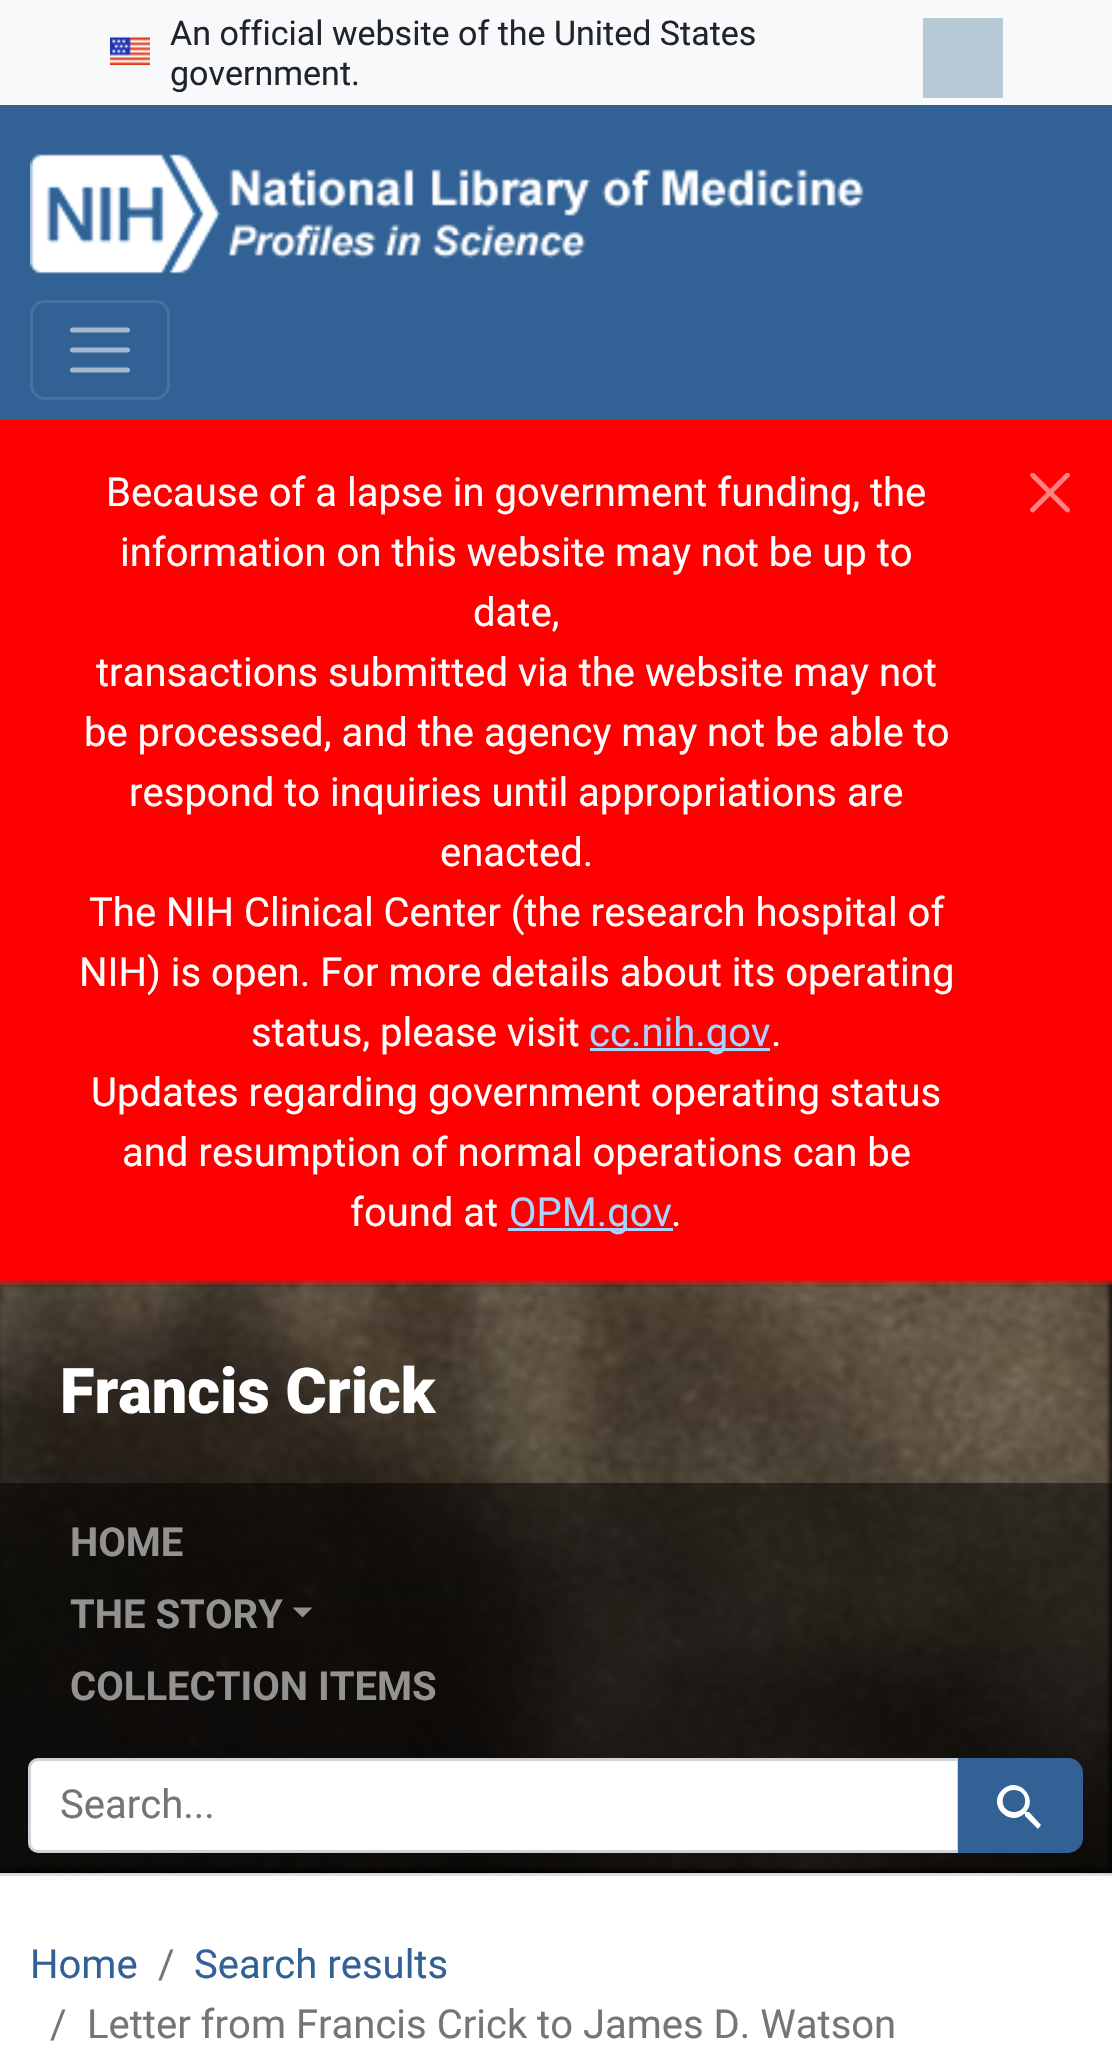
#include "include/core/SkBlurTypes.h"
#include "include/core/SkCanvas.h"
#include "include/core/SkData.h"
#include "include/core/SkFont.h"
#include "include/core/SkFontMgr.h"
#include "include/core/SkImage.h"
#include "include/core/SkMaskFilter.h"
#include "include/core/SkPaint.h"
#include "include/core/SkPathBuilder.h"
#include "include/core/SkTextBlob.h"
#include "include/effects/SkDashPathEffect.h"
#include "include/effects/SkGradientShader.h"
#include "include/utils/SkParsePath.h"

extern sk_sp<SkFontMgr> fontMgr;

static SkFont font(const char* family, int weight, float size, bool italic = false) {
    SkFontStyle style(weight, SkFontStyle::kNormal_Width,
        italic ? SkFontStyle::kItalic_Slant : SkFontStyle::kUpright_Slant);
    SkFont result(fontMgr->matchFamilyStyle(family, style), size);
    result.setSubpixel(true);
    return result;
}

static void drawLabel(SkCanvas* canvas, const char* s, float x, float y, const SkFont& font, SkColor color) {
    SkPaint ink(SkColor4f::FromColor(color));
    ink.setAntiAlias(true);
    canvas->drawString(s, x, y, font, ink);
}

static void fillRect(SkCanvas* canvas, float x, float y, float w, float h, SkColor color) {
    SkPaint ink(SkColor4f::FromColor(color));
    ink.setAntiAlias(true);
    canvas->drawRect(SkRect::MakeXYWH(x, y, w, h), ink);
}

static void drawPhoto(SkCanvas* canvas, const char* path, float x, float y, float w, float h) {
    auto image = SkImages::DeferredFromEncodedData(SkData::MakeFromFileName(path));
    canvas->drawImageRect(image, SkRect::MakeXYWH(x, y, w, h), SkSamplingOptions());
}

static SkPath parsePath(const char* data, bool evenOdd = false) {
    SkPath result = *SkParsePath::FromSVGString(data);
    if (evenOdd) result.setFillType(SkPathFillType::kEvenOdd);
    return result;
}

void draw(SkCanvas* canvas) {
    SkPaint paint;
    paint.setAntiAlias(true);
    canvas->clear(0xFFFFFFFF);
    fillRect(canvas, 0, 0, 1112, 105, 0xFFF8F9FA);
    drawPhoto(canvas, "assets/img1.png", 110, 37, 40, 28);
    SkFont font1 = font("Roboto", 400, 34);
    drawLabel(canvas, "An official website of the United States", 170, 45, font1, 0xFF212529);
    drawLabel(canvas, "government.", 170, 85, font1, 0xFF212529);
    fillRect(canvas, 923, 18, 80, 80, 0xFFB6C9D4);
    fillRect(canvas, 0, 105, 1112, 315, 0xFF326295);
    drawPhoto(canvas, "assets/img2.png", 30, 154, 834, 120);
    paint.setStroke(true);
    paint.setStrokeWidth(3);
    paint.setColor(0xFF4772A0);
    canvas->drawRoundRect(SkRect::MakeXYWH(31.5f, 301.5f, 137, 97), 13.5f, 13.5f, paint);
    paint.setStrokeWidth(5);
    paint.setStrokeCap(SkPaint::kRound_Cap);
    paint.setColor(0xFFA3B8CF);
    canvas->drawPath(parsePath("M72.5 330H127.5M72.5 350H127.5M72.5 370H127.5"), paint);
    fillRect(canvas, 0, 420, 1112, 865, 0xFFFF0000);
    SkFont font2 = font("Roboto", 400, 40);
    drawLabel(canvas, "Because of a lapse in government funding, the", 106, 506, font2, 0xFFFFFFFF);
    drawLabel(canvas, "information on this website may not be up to", 120, 566, font2, 0xFFFFFFFF);
    drawLabel(canvas, "date,", 473, 626, font2, 0xFFFFFFFF);
    drawLabel(canvas, "transactions submitted via the website may not", 96, 686, font2, 0xFFFFFFFF);
    drawLabel(canvas, "be processed, and the agency may not be able to", 84, 746, font2, 0xFFFFFFFF);
    drawLabel(canvas, "respond to inquiries until appropriations are", 129, 806, font2, 0xFFFFFFFF);
    drawLabel(canvas, "enacted.", 440, 866, font2, 0xFFFFFFFF);
    drawLabel(canvas, "The NIH Clinical Center (the research hospital of", 89, 926, font2, 0xFFFFFFFF);
    drawLabel(canvas, "NIH) is open. For more details about its operating", 79, 986, font2, 0xFFFFFFFF);
    drawLabel(canvas, "status, please visit", 251, 1046, font2, 0xFFFFFFFF);
    fillRect(canvas, 590, 1048, 180, 3, 0xFFAAD4FF);
    drawLabel(canvas, "cc.nih.gov", 589, 1046, font2, 0xFFAAD4FF);
    drawLabel(canvas, ".", 771, 1046, font2, 0xFFFFFFFF);
    drawLabel(canvas, "Updates regarding government operating status", 91, 1106, font2, 0xFFFFFFFF);
    drawLabel(canvas, "and resumption of normal operations can be", 122, 1166, font2, 0xFFFFFFFF);
    drawLabel(canvas, "found at", 350, 1226, font2, 0xFFFFFFFF);
    fillRect(canvas, 508, 1228, 165, 3, 0xFFAAD4FF);
    drawLabel(canvas, "OPM.gov", 509, 1226, font2, 0xFFAAD4FF);
    drawLabel(canvas, ".", 671, 1226, font2, 0xFFFFFFFF);
    drawPhoto(canvas, "assets/img3.png", 1030, 473, 40, 40);
    fillRect(canvas, 0, 1285, 1112, 588, 0xFF000000);
    fillRect(canvas, 0, 1873, 1112, 3, 0xFFDEE2E6);
    drawPhoto(canvas, "assets/img4.png", 0, 1278, 1112, 597);
    paint.setStroke(false);
    paint.setColor(0xFF000000);
    paint.setMaskFilter(SkMaskFilter::MakeBlur(kNormal_SkBlurStyle, 2.5f));
    canvas->drawRect(SkRect::MakeXYWH(1110, 1283, 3, 587), paint);
    paint.setMaskFilter(nullptr);
    {
        const SkColor colors[] = {0x00000000, 0x66000000, 0x80000000};
        const float stops[] = {0, 0.5f, 1};
        const SkPoint ends[] = {{556, 1285}, {556, 1873}};
        paint.setShader(SkGradientShader::MakeLinear(ends, colors, stops, 3, SkTileMode::kClamp));
        paint.setAlpha(255);
    }
    canvas->drawRect(SkRect::MakeXYWH(0, 1301, 1112, 572), paint);
    SkFont font3 = font("Roboto", 900, 63);
    drawLabel(canvas, "Francis Crick", 60, 1413, font3, 0xFFFFFFFF);
    fillRect(canvas, 0, 1483, 1112, 390, 0x80000000);
    SkFont font4 = font("Roboto", 700, 40);
    drawLabel(canvas, "HOME", 70, 1556, font4, 0xFF939291);
    drawLabel(canvas, "THE STORY", 70, 1628, font4, 0xFF939291);
    paint.setShader(nullptr);
    paint.setColor(0xFF939190);
    canvas->drawPath(parsePath("M292.5 1607.5H312.5L302.5 1617.5Z"), paint);
    drawLabel(canvas, "COLLECTION ITEMS", 70, 1700, font4, 0xFF939291);
    paint.setColor(0xFFFFFFFF);
    canvas->drawPath(parsePath("M38 1759.5H958.5V1851.5H38C33.5 1851.5 29.5 1847.5 29.5 1843V1768C29.5 1763.5 33.5 1759.5 38 1759.5Z"), paint);
    paint.setStroke(true);
    paint.setStrokeWidth(3);
    paint.setStrokeCap(SkPaint::kButt_Cap);
    paint.setColor(0xFFCED4DA);
    canvas->drawPath(parsePath("M38 1759.5H958.5V1851.5H38C33.5 1851.5 29.5 1847.5 29.5 1843V1768C29.5 1763.5 33.5 1759.5 38 1759.5Z"), paint);
    drawLabel(canvas, "Search...", 60, 1818, font2, 0xFF757575);
    paint.setStroke(false);
    paint.setColor(0xFF326295);
    canvas->drawPath(parsePath("M959.5 1759.5H1068C1075.5 1759.5 1081.5 1765.5 1081.5 1773V1838C1081.5 1845.5 1075.5 1851.5 1068 1851.5H959.5Z"), paint);
    paint.setStroke(true);
    canvas->drawPath(parsePath("M959.5 1759.5H1068C1075.5 1759.5 1081.5 1765.5 1081.5 1773V1838C1081.5 1845.5 1075.5 1851.5 1068 1851.5H959.5Z"), paint);
    paint.setStroke(false);
    paint.setColor(0xFFFFFFFF);
    canvas->drawPath(parsePath("M1029 1812H1027H1026C1039 1797 1017 1775 1002 1790C987 1805 1009 1827 1024 1814H1025V1816L1038 1829L1041 1825ZM1014 1812C999 1812 999 1790 1014 1790C1029 1790 1029 1812 1014 1812Z"), paint);
    drawLabel(canvas, "Home", 30, 1978, font2, 0xFF326295);
    drawLabel(canvas, "/", 158, 1978, font2, 0xFF757575);
    drawLabel(canvas, "Search results", 194, 1978, font2, 0xFF326295);
    drawLabel(canvas, "/", 50, 2038, font2, 0xFF757575);
    drawLabel(canvas, "Letter from Francis Crick to James D. Watson", 87, 2038, font2, 0xFF757575);
}
